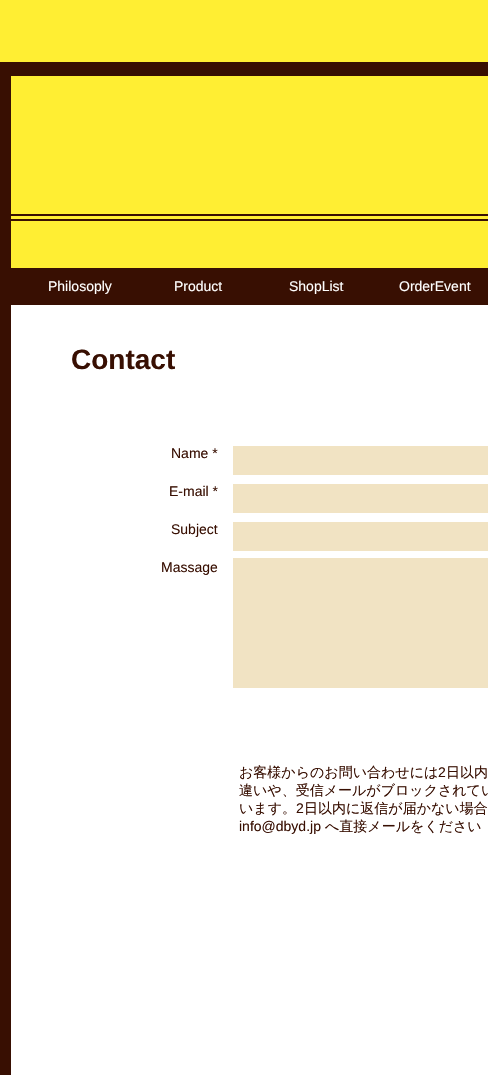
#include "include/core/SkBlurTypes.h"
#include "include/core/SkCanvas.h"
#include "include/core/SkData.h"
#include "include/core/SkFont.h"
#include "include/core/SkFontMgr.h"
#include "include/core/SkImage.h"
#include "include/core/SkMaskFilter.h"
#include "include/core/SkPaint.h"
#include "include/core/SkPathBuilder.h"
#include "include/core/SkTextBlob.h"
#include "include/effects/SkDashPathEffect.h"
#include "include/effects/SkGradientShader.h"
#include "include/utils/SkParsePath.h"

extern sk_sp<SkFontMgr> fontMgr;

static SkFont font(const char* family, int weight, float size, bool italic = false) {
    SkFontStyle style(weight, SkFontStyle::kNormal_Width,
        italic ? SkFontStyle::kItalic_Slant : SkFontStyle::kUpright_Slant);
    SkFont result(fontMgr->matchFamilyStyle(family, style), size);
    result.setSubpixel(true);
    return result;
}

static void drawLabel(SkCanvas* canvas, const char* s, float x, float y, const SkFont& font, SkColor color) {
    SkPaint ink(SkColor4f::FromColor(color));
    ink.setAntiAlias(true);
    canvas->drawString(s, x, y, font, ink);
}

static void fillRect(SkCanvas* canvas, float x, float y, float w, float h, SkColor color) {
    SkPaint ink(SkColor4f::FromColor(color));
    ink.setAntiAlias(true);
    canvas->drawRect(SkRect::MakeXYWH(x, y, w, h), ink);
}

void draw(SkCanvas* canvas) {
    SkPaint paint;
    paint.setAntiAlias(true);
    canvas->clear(0xFFFFEE33);
    fillRect(canvas, 5, 214, 483, 2, 0xFF380F02);
    fillRect(canvas, 5, 219, 483, 2, 0xFF380F02);
    fillRect(canvas, 0, 62, 11, 1013, 0xFF380F02);
    fillRect(canvas, 11, 62, 477, 14, 0xFF380F02);
    fillRect(canvas, 11, 268, 477, 37, 0xFF380F02);
    SkFont font1 = font("Liberation Sans", 400, 14);
    drawLabel(canvas, "Philosoply", 48, 291, font1, 0xFFFFFFFF);
    drawLabel(canvas, "Product", 174, 291, font1, 0xFFFFFFFF);
    drawLabel(canvas, "ShopList", 289, 291, font1, 0xFFFFFFFF);
    drawLabel(canvas, "OrderEvent", 399, 291, font1, 0xFFFFFFFF);
    fillRect(canvas, 11, 305, 477, 770, 0xFFFFFFFF);
    SkFont font2 = font("Liberation Sans", 700, 28);
    drawLabel(canvas, "Contact", 71, 369, font2, 0xFF380F02);
    drawLabel(canvas, "Name *", 171, 458, font1, 0xFF380F02);
    fillRect(canvas, 233, 446, 255, 29, 0xFFF1E3C3);
    drawLabel(canvas, "E-mail *", 169, 496, font1, 0xFF380F02);
    fillRect(canvas, 233, 484, 255, 29, 0xFFF1E3C3);
    drawLabel(canvas, "Subject", 171, 534, font1, 0xFF380F02);
    fillRect(canvas, 233, 522, 255, 29, 0xFFF1E3C3);
    drawLabel(canvas, "Massage", 161, 572, font1, 0xFF380F02);
    fillRect(canvas, 233, 558, 255, 130, 0xFFF1E3C3);
    SkFont font3 = font("WenQuanYi Zen Hei", 500, 14);
    drawLabel(canvas, "お客様からのお問い合わせには", 239, 777, font3, 0xFF380F02);
    drawLabel(canvas, "2", 438, 777, font1, 0xFF380F02);
    drawLabel(canvas, "日以内", 446, 777, font3, 0xFF380F02);
    drawLabel(canvas, "違いや、受信メールがブロックされてい", 239, 795, font3, 0xFF380F02);
    drawLabel(canvas, "います。", 239, 813, font3, 0xFF380F02);
    drawLabel(canvas, "2", 296, 813, font1, 0xFF380F02);
    drawLabel(canvas, "日以内に返信が届かない場合", 304, 813, font3, 0xFF380F02);
    drawLabel(canvas, "info@dbyd.jp", 239, 831, font1, 0xFF380F02);
    drawLabel(canvas, "へ直接メールをください", 325, 831, font3, 0xFF380F02);
}
